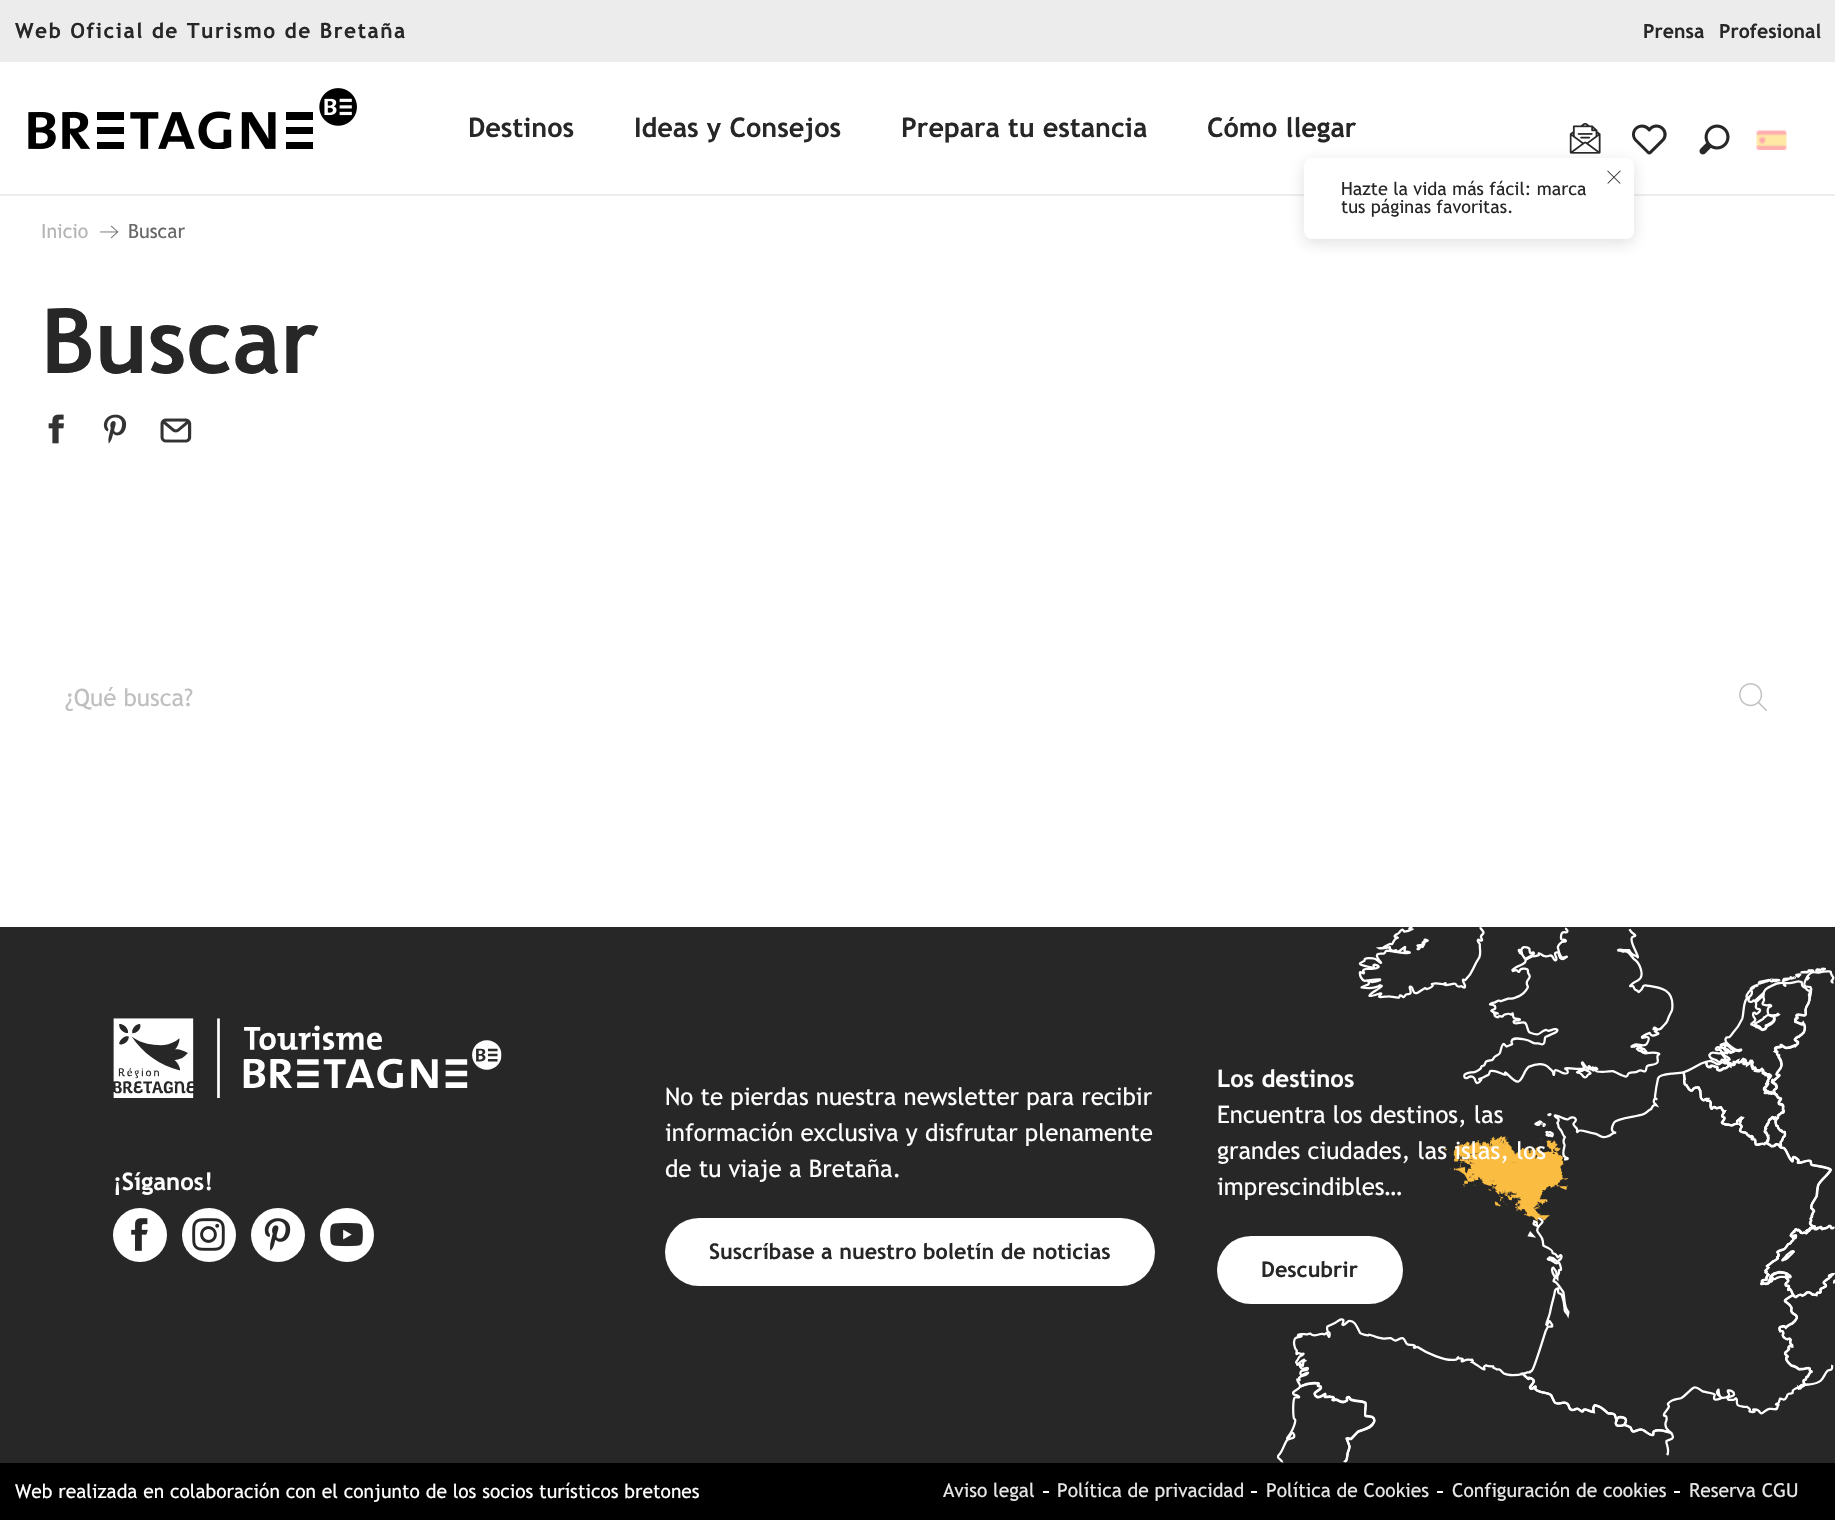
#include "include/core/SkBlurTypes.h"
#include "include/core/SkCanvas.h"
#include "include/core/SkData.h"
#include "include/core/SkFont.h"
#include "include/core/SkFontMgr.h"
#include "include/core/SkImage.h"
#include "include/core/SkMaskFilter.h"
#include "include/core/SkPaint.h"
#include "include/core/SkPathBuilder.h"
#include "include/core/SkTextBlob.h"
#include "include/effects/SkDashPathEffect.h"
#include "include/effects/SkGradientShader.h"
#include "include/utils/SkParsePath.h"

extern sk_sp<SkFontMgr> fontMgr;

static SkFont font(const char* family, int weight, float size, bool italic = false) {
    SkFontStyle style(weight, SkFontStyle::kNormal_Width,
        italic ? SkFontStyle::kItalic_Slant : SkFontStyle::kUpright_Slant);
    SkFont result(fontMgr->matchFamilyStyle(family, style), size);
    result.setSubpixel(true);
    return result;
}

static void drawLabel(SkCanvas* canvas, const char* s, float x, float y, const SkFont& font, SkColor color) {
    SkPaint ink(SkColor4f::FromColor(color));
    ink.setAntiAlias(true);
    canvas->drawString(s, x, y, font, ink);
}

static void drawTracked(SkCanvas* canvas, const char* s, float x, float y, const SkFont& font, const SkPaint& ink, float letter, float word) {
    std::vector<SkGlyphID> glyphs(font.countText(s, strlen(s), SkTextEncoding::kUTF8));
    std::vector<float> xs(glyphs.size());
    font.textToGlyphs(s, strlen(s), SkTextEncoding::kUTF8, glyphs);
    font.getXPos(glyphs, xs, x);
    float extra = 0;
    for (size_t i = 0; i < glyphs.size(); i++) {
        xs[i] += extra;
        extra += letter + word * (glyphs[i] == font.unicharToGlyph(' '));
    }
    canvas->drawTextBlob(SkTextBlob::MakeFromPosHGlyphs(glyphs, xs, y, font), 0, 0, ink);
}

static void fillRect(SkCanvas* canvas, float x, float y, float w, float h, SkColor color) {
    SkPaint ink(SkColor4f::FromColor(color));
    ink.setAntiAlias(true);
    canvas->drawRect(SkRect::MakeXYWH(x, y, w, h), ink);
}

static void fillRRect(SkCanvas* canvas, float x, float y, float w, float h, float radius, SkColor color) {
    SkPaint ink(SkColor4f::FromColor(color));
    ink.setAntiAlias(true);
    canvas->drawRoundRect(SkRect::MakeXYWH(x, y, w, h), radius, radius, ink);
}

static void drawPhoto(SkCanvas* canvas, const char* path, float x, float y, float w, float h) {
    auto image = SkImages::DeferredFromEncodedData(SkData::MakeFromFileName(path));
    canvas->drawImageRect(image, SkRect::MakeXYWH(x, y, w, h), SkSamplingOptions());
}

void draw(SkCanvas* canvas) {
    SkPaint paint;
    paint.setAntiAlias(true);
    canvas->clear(0xFFFFFFFF);
    fillRect(canvas, 0, 194, 1835, 2, 0xFFEDEDED);
    fillRect(canvas, 0, 0, 1835, 62, 0xFFECECEC);
    SkFont font1 = font("Trebuchet MS", 700, 21);
    paint.setColor(0xFF272727);
    drawTracked(canvas, "Web Oficial de Turismo de Bretaña", 15, 38, font1, paint, 1.5f, 0);
    SkFont font2 = font("Trebuchet MS", 700, 19.5f);
    drawLabel(canvas, "Prensa", 1643, 38, font2, 0xFF272727);
    drawLabel(canvas, "Profesional", 1719, 38, font2, 0xFF272727);
    drawPhoto(canvas, "assets/img1.png", 28, 88, 329, 61);
    SkFont font3 = font("Trebuchet MS", 700, 27);
    drawLabel(canvas, "Destinos", 468, 137, font3, 0xFF272727);
    drawLabel(canvas, "Ideas y Consejos", 634, 137, font3, 0xFF272727);
    drawLabel(canvas, "Prepara tu estancia", 901, 137, font3, 0xFF272727);
    drawLabel(canvas, "Cómo llegar", 1207, 137, font3, 0xFF272727);
    drawPhoto(canvas, "assets/img2.png", 1569, 123, 32, 31);
    paint.setColor(0x26272727);
    paint.setMaskFilter(SkMaskFilter::MakeBlur(kNormal_SkBlurStyle, 7.5f));
    canvas->drawRoundRect(SkRect::MakeXYWH(1304, 162, 330, 81), 8, 8, paint);
    paint.setMaskFilter(nullptr);
    drawPhoto(canvas, "assets/img3.png", 1632, 124, 35, 31);
    drawPhoto(canvas, "assets/img4.png", 1699, 124, 31, 31);
    drawPhoto(canvas, "assets/img5.png", 1756, 130, 31, 20);
    fillRRect(canvas, 1304, 158, 330, 81, 8, 0xFFFFFFFF);
    drawPhoto(canvas, "assets/img6.png", 1607, 170, 14, 14);
    SkFont font4 = font("Trebuchet MS", 400, 18);
    drawLabel(canvas, "Hazte la vida más fácil: marca", 1341, 195, font4, 0xFF272727);
    drawLabel(canvas, "tus páginas favoritas.", 1341, 213, font4, 0xFF272727);
    SkFont font5 = font("Trebuchet MS", 400, 19.5f);
    drawLabel(canvas, "Inicio", 41, 238, font5, 0xFFB4B4B4);
    drawPhoto(canvas, "assets/img7.png", 100, 225, 19, 14);
    drawLabel(canvas, "Buscar", 128, 238, font5, 0xFF686868);
    SkFont font6 = font("Trebuchet MS", 700, 90);
    drawLabel(canvas, "Buscar", 41, 373, font6, 0xFF272727);
    drawPhoto(canvas, "assets/img8.png", 48, 414, 16, 30);
    drawPhoto(canvas, "assets/img9.png", 103, 414, 24, 30);
    drawPhoto(canvas, "assets/img10.png", 160, 418, 32, 25);
    SkFont font7 = font("Trebuchet MS", 400, 24);
    drawLabel(canvas, "¿Qué busca?", 65, 706, font7, 0xFFBFBFBF);
    drawPhoto(canvas, "assets/img11.png", 1739, 683, 28, 28);
    fillRect(canvas, 0, 927, 1835, 536, 0xFF272727);
    drawPhoto(canvas, "assets/img12.png", 1277, 927, 558, 536);
    drawPhoto(canvas, "assets/img13.png", 113, 1018, 389, 80);
    SkFont font8 = font("Trebuchet MS", 700, 24);
    drawLabel(canvas, "¡Síganos!", 113, 1190, font8, 0xFFFFFFFF);
    paint.setColor(0xFFFFFFFF);
    canvas->drawCircle(140, 1235, 27, paint);
    drawPhoto(canvas, "assets/img14.png", 131, 1218, 17, 33);
    canvas->drawCircle(209, 1235, 27, paint);
    drawPhoto(canvas, "assets/img15.png", 192, 1218, 33, 33);
    canvas->drawCircle(278, 1235, 27, paint);
    drawPhoto(canvas, "assets/img16.png", 264, 1218, 27, 33);
    canvas->drawCircle(347, 1235, 27, paint);
    drawPhoto(canvas, "assets/img17.png", 330, 1223, 33, 24);
    drawLabel(canvas, "No te pierdas nuestra newsletter para recibir", 665, 1105, font7, 0xFFFFFFFF);
    drawLabel(canvas, "información exclusiva y disfrutar plenamente", 665, 1141, font7, 0xFFFFFFFF);
    drawLabel(canvas, "de tu viaje a Bretaña.", 665, 1177, font7, 0xFFFFFFFF);
    fillRRect(canvas, 665, 1218, 490, 68, 34, 0xFFFFFFFF);
    SkFont font9 = font("Trebuchet MS", 700, 21.6f);
    drawLabel(canvas, "Suscríbase a nuestro boletín de noticias", 709, 1259, font9, 0xFF272727);
    drawLabel(canvas, "Los destinos", 1217, 1087, font8, 0xFFFFFFFF);
    drawLabel(canvas, "Encuentra los destinos, las", 1217, 1123, font7, 0xFFFFFFFF);
    drawLabel(canvas, "grandes ciudades, las islas, los", 1217, 1159, font7, 0xFFFFFFFF);
    drawLabel(canvas, "imprescindibles…", 1217, 1195, font7, 0xFFFFFFFF);
    fillRRect(canvas, 1217, 1236, 186, 68, 34, 0xFFFFFFFF);
    drawLabel(canvas, "Descubrir", 1261, 1277, font9, 0xFF272727);
    fillRect(canvas, 0, 1463, 1835, 57, 0xFF000000);
    SkFont font10 = font("Trebuchet MS", 400, 19.2f);
    drawLabel(canvas, "Web realizada en colaboración con el conjunto de los socios turísticos bretones", 15, 1498, font10, 0xFFFFFFFF);
    drawLabel(canvas, "Aviso legal", 943, 1497, font10, 0xFFE6E6E6);
    fillRect(canvas, 1043, 1491, 6, 2, 0xFFFFFFFF);
    drawLabel(canvas, "Política de privacidad", 1057, 1497, font10, 0xFFE6E6E6);
    fillRect(canvas, 1251, 1491, 6, 2, 0xFFFFFFFF);
    drawLabel(canvas, "Política de Cookies", 1266, 1497, font10, 0xFFE6E6E6);
    fillRect(canvas, 1437, 1491, 6, 2, 0xFFFFFFFF);
    drawLabel(canvas, "Configuración de cookies", 1452, 1497, font10, 0xFFE6E6E6);
    fillRect(canvas, 1674, 1491, 6, 2, 0xFFFFFFFF);
    drawLabel(canvas, "Reserva CGU", 1689, 1497, font10, 0xFFE6E6E6);
}
